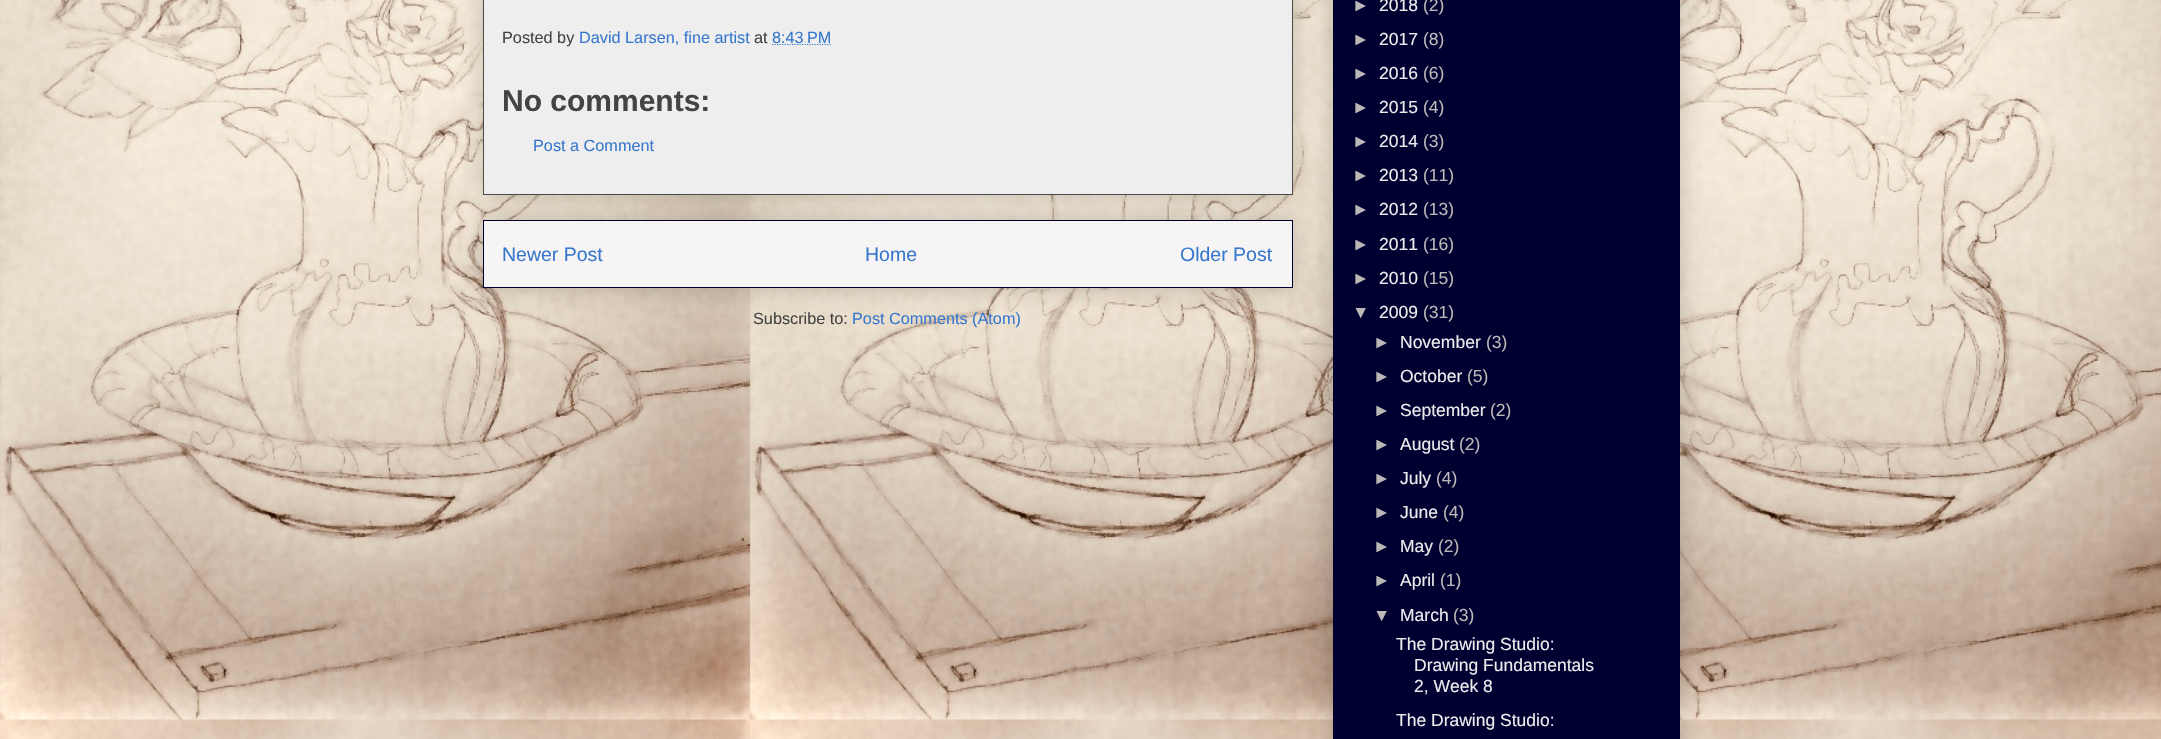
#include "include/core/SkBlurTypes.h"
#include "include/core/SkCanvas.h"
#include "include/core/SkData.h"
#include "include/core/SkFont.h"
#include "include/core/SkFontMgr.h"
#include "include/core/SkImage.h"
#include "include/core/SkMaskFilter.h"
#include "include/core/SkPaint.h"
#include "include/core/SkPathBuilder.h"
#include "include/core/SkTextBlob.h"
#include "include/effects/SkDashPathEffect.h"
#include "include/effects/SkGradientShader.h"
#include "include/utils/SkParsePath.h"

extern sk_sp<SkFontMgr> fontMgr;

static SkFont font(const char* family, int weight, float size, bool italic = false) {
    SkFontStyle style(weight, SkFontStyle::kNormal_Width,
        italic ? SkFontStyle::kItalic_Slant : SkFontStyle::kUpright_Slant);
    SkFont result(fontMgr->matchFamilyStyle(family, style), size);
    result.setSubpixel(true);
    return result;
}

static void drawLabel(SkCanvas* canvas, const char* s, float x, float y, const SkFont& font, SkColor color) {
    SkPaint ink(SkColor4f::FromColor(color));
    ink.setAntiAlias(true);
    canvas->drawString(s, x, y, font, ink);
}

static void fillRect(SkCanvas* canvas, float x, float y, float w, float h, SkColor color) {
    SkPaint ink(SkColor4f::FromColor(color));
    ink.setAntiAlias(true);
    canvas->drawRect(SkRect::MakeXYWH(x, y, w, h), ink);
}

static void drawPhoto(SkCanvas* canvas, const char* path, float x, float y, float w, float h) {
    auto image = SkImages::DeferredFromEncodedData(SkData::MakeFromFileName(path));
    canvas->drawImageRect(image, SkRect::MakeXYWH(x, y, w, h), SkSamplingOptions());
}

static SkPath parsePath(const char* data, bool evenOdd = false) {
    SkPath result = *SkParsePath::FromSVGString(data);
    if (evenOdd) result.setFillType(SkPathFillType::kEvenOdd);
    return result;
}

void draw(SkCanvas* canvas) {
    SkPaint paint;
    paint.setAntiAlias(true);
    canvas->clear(0xFFFFFFFF);
    drawPhoto(canvas, "assets/img1.png", 0, 0, 2161, 739);
    paint.setColor(0x33000000);
    paint.setMaskFilter(SkMaskFilter::MakeBlur(kNormal_SkBlurStyle, 12.5f));
    canvas->drawRect(SkRect::MakeXYWH(483, 220, 810, 68), paint);
    paint.setMaskFilter(nullptr);
    paint.setColor(0xFFF6F4F4);
    canvas->drawRect(SkRect::MakeXYWH(483.5f, 220.5f, 809, 67), paint);
    paint.setStroke(true);
    paint.setStrokeWidth(1);
    paint.setColor(0xFF000030);
    canvas->drawRect(SkRect::MakeXYWH(483.5f, 220.5f, 809, 67), paint);
    paint.setStroke(false);
    paint.setColor(0x33000000);
    paint.setMaskFilter(SkMaskFilter::MakeBlur(kNormal_SkBlurStyle, 12.5f));
    canvas->drawRect(SkRect::MakeXYWH(483, -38, 810, 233), paint);
    paint.setMaskFilter(nullptr);
    paint.setColor(0xFFEEEEEE);
    canvas->drawRect(SkRect::MakeXYWH(483.5f, -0.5f, 809, 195), paint);
    paint.setStroke(true);
    paint.setColor(0xFF4A4949);
    canvas->drawRect(SkRect::MakeXYWH(483.5f, -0.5f, 809, 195), paint);
    SkFont font1 = font("Liberation Sans", 400, 16.25f);
    drawLabel(canvas, "Posted by", 502, 43, font1, 0xFF444444);
    drawLabel(canvas, "David Larsen, fine artist", 579, 43, font1, 0xFF3778CD);
    drawLabel(canvas, "at", 754, 43, font1, 0xFF444444);
    paint.setStrokeWidth(1.2f);
    paint.setColor(0xFF3778CD);
    paint.setPathEffect(SkDashPathEffect::Make({{1.25f, 1.25f}}, 0));
    canvas->drawPath(parsePath("M772 44.5H831.5"), paint);
    paint.setPathEffect(nullptr);
    drawLabel(canvas, "8:43 PM", 772, 43, font1, 0xFF3778CD);
    SkFont font2 = font("Liberation Sans", 700, 30);
    drawLabel(canvas, "No comments:", 502, 111, font2, 0xFF444444);
    drawLabel(canvas, "Post a Comment", 533, 151, font1, 0xFF3778CD);
    SkFont font3 = font("Liberation Sans", 400, 19.5f);
    drawLabel(canvas, "Newer Post", 502, 261, font3, 0xFF3778CD);
    drawLabel(canvas, "Home", 865, 261, font3, 0xFF3778CD);
    drawLabel(canvas, "Older Post", 1180, 261, font3, 0xFF3778CD);
    drawLabel(canvas, "Subscribe to:", 753, 324, font1, 0xFF444444);
    drawLabel(canvas, "Post Comments (Atom)", 852, 324, font1, 0xFF3778CD);
    paint.setStroke(false);
    paint.setColor(0x33000000);
    paint.setMaskFilter(SkMaskFilter::MakeBlur(kNormal_SkBlurStyle, 12.5f));
    canvas->drawRect(SkRect::MakeXYWH(1333, -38, 347, 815), paint);
    paint.setMaskFilter(nullptr);
    fillRect(canvas, 1333, 0, 347, 739, 0xFF000030);
    SkFont font4 = font("Liberation Sans", 400, 17.5f);
    drawLabel(canvas, "►", 1352, 11, font4, 0xFFBDB8B8);
    drawLabel(canvas, "2018", 1379, 11, font4, 0xFFECECEE);
    drawLabel(canvas, "(2)", 1423, 11, font4, 0xFFBDB8B8);
    drawLabel(canvas, "►", 1352, 45, font4, 0xFFBDB8B8);
    drawLabel(canvas, "2017", 1379, 45, font4, 0xFFECECEE);
    drawLabel(canvas, "(8)", 1423, 45, font4, 0xFFBDB8B8);
    drawLabel(canvas, "►", 1352, 79, font4, 0xFFBDB8B8);
    drawLabel(canvas, "2016", 1379, 79, font4, 0xFFECECEE);
    drawLabel(canvas, "(6)", 1423, 79, font4, 0xFFBDB8B8);
    drawLabel(canvas, "►", 1352, 113, font4, 0xFFBDB8B8);
    drawLabel(canvas, "2015", 1379, 113, font4, 0xFFECECEE);
    drawLabel(canvas, "(4)", 1423, 113, font4, 0xFFBDB8B8);
    drawLabel(canvas, "►", 1352, 147, font4, 0xFFBDB8B8);
    drawLabel(canvas, "2014", 1379, 147, font4, 0xFFECECEE);
    drawLabel(canvas, "(3)", 1423, 147, font4, 0xFFBDB8B8);
    drawLabel(canvas, "►", 1352, 181, font4, 0xFFBDB8B8);
    drawLabel(canvas, "2013", 1379, 181, font4, 0xFFECECEE);
    drawLabel(canvas, "(11)", 1423, 181, font4, 0xFFBDB8B8);
    drawLabel(canvas, "►", 1352, 215, font4, 0xFFBDB8B8);
    drawLabel(canvas, "2012", 1379, 215, font4, 0xFFECECEE);
    drawLabel(canvas, "(13)", 1423, 215, font4, 0xFFBDB8B8);
    drawLabel(canvas, "►", 1352, 250, font4, 0xFFBDB8B8);
    drawLabel(canvas, "2011", 1379, 250, font4, 0xFFECECEE);
    drawLabel(canvas, "(16)", 1423, 250, font4, 0xFFBDB8B8);
    drawLabel(canvas, "►", 1352, 284, font4, 0xFFBDB8B8);
    drawLabel(canvas, "2010", 1379, 284, font4, 0xFFECECEE);
    drawLabel(canvas, "(15)", 1423, 284, font4, 0xFFBDB8B8);
    drawLabel(canvas, "▼", 1352, 318, font4, 0xFFBDB8B8);
    drawLabel(canvas, "2009", 1379, 318, font4, 0xFFECECEE);
    drawLabel(canvas, "(31)", 1423, 318, font4, 0xFFBDB8B8);
    drawLabel(canvas, "►", 1373, 348, font4, 0xFFBDB8B8);
    drawLabel(canvas, "November", 1400, 348, font4, 0xFFECECEE);
    drawLabel(canvas, "(3)", 1486, 348, font4, 0xFFBDB8B8);
    drawLabel(canvas, "►", 1373, 382, font4, 0xFFBDB8B8);
    drawLabel(canvas, "October", 1400, 382, font4, 0xFFECECEE);
    drawLabel(canvas, "(5)", 1467, 382, font4, 0xFFBDB8B8);
    drawLabel(canvas, "►", 1373, 416, font4, 0xFFBDB8B8);
    drawLabel(canvas, "September", 1400, 416, font4, 0xFFECECEE);
    drawLabel(canvas, "(2)", 1490, 416, font4, 0xFFBDB8B8);
    drawLabel(canvas, "►", 1373, 450, font4, 0xFFBDB8B8);
    drawLabel(canvas, "August", 1400, 450, font4, 0xFFECECEE);
    drawLabel(canvas, "(2)", 1459, 450, font4, 0xFFBDB8B8);
    drawLabel(canvas, "►", 1373, 484, font4, 0xFFBDB8B8);
    drawLabel(canvas, "July", 1400, 484, font4, 0xFFECECEE);
    drawLabel(canvas, "(4)", 1436, 484, font4, 0xFFBDB8B8);
    drawLabel(canvas, "►", 1373, 518, font4, 0xFFBDB8B8);
    drawLabel(canvas, "June", 1400, 518, font4, 0xFFECECEE);
    drawLabel(canvas, "(4)", 1443, 518, font4, 0xFFBDB8B8);
    drawLabel(canvas, "►", 1373, 552, font4, 0xFFBDB8B8);
    drawLabel(canvas, "May", 1400, 552, font4, 0xFFECECEE);
    drawLabel(canvas, "(2)", 1438, 552, font4, 0xFFBDB8B8);
    drawLabel(canvas, "►", 1373, 586, font4, 0xFFBDB8B8);
    drawLabel(canvas, "April", 1400, 586, font4, 0xFFECECEE);
    drawLabel(canvas, "(1)", 1440, 586, font4, 0xFFBDB8B8);
    drawLabel(canvas, "▼", 1373, 621, font4, 0xFFBDB8B8);
    drawLabel(canvas, "March", 1400, 621, font4, 0xFFECECEE);
    drawLabel(canvas, "(3)", 1453, 621, font4, 0xFFBDB8B8);
    drawLabel(canvas, "The Drawing Studio:", 1396, 650, font4, 0xFFECECEE);
    drawLabel(canvas, "Drawing Fundamentals", 1414, 671, font4, 0xFFECECEE);
    drawLabel(canvas, "2, Week 8", 1414, 692, font4, 0xFFECECEE);
    drawLabel(canvas, "The Drawing Studio:", 1396, 726, font4, 0xFFECECEE);
}
